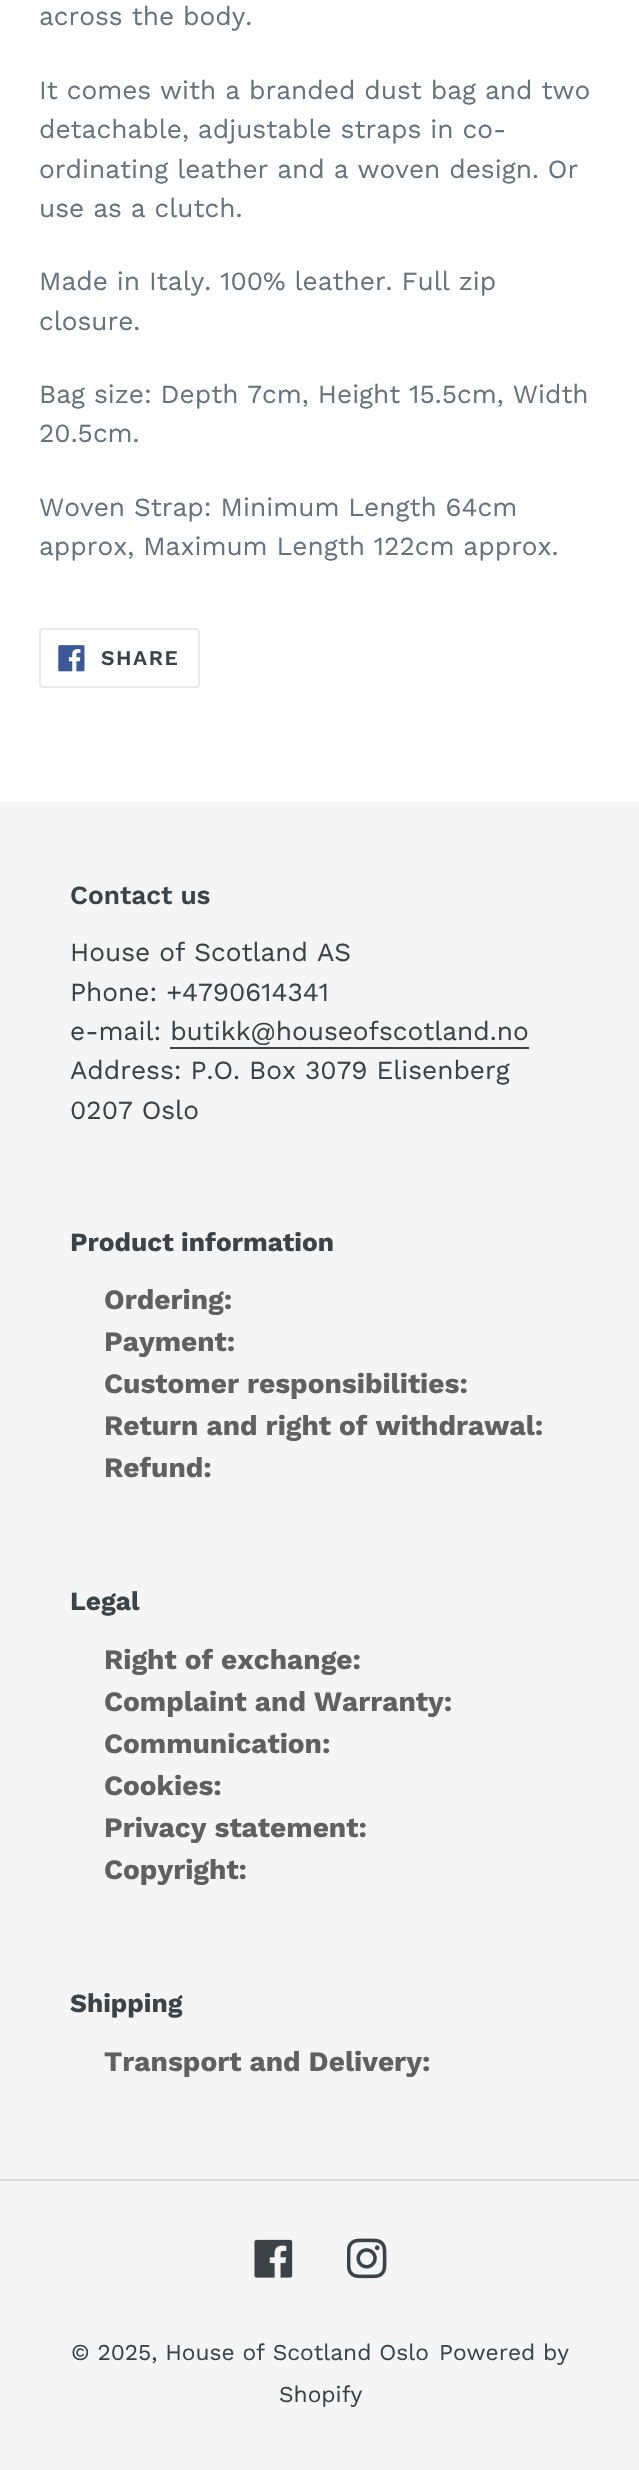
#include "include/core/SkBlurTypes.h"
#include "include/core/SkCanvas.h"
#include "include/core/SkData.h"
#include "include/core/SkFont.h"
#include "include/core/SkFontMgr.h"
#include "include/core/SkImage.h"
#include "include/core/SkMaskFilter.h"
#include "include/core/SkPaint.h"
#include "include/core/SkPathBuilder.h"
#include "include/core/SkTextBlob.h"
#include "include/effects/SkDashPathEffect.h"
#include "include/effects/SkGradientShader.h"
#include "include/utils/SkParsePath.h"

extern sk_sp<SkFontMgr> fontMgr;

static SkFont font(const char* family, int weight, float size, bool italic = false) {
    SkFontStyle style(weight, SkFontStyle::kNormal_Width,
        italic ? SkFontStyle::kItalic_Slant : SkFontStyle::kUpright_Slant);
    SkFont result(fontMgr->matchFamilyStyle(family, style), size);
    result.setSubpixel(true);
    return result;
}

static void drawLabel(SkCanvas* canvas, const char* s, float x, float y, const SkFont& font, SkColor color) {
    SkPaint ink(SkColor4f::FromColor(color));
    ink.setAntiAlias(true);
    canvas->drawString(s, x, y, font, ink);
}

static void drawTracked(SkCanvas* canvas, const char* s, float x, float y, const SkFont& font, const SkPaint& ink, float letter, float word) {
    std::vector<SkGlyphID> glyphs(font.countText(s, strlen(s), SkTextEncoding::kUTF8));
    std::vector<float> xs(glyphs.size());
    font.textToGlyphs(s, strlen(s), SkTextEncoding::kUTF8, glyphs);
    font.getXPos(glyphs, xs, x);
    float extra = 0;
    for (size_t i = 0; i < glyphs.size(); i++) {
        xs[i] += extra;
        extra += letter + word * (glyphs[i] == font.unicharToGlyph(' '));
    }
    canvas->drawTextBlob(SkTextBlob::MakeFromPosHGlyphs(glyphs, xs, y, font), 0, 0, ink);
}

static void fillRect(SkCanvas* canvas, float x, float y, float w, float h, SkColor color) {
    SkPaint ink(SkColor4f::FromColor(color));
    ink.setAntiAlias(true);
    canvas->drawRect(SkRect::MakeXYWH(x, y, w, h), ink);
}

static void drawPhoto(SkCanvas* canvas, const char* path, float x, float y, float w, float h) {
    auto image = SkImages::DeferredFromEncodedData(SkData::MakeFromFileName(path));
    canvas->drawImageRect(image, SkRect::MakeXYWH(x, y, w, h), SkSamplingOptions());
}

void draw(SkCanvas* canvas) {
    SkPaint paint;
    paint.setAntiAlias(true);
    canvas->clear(0xFFFFFFFF);
    SkFont font1 = font("Work Sans", 400, 26.25f);
    drawLabel(canvas, "across the body.", 39, 25, font1, 0xFF69727B);
    drawLabel(canvas, "It comes with a branded dust bag and two", 39, 99, font1, 0xFF69727B);
    drawLabel(canvas, "detachable, adjustable straps in co-", 39, 138, font1, 0xFF69727B);
    drawLabel(canvas, "ordinating leather and a woven design. Or", 39, 178, font1, 0xFF69727B);
    drawLabel(canvas, "use as a clutch.", 39, 217, font1, 0xFF69727B);
    drawLabel(canvas, "Made in Italy. 100% leather. Full zip", 39, 290, font1, 0xFF69727B);
    drawLabel(canvas, "closure.", 39, 330, font1, 0xFF69727B);
    drawLabel(canvas, "Bag size: Depth 7cm, Height 15.5cm, Width", 39, 403, font1, 0xFF69727B);
    drawLabel(canvas, "20.5cm.", 39, 442, font1, 0xFF69727B);
    drawLabel(canvas, "Woven Strap: Minimum Length 64cm", 39, 516, font1, 0xFF69727B);
    drawLabel(canvas, "approx, Maximum Length 122cm approx.", 39, 555, font1, 0xFF69727B);
    paint.setStroke(true);
    paint.setStrokeWidth(2);
    paint.setColor(0xFFE8E9EB);
    canvas->drawRoundRect(SkRect::MakeXYWH(40, 629, 159, 58), 3, 3, paint);
    drawPhoto(canvas, "assets/img1.png", 58, 645, 27, 27);
    SkFont font2 = font("Work Sans", 600, 21);
    paint.setStroke(false);
    paint.setColor(0xFF3D4246);
    drawTracked(canvas, "SHARE", 101, 665, font2, paint, 1.5f, 0);
    fillRect(canvas, 0, 802, 639, 1668, 0xFFF5F5F5);
    SkFont font3 = font("Work Sans", 600, 26.25f);
    drawLabel(canvas, "Contact us", 70, 904, font3, 0xFF3D4246);
    drawLabel(canvas, "House of Scotland AS", 70, 961, font1, 0xFF3D4246);
    drawLabel(canvas, "Phone: +4790614341", 70, 1001, font1, 0xFF3D4246);
    drawLabel(canvas, "e-mail: butikk@houseofscotland.no", 70, 1040, font1, 0xFF3D4246);
    fillRect(canvas, 170, 1047, 359, 2, 0xFF3D4246);
    drawLabel(canvas, "Address: P.O. Box 3079 Elisenberg", 70, 1079, font1, 0xFF3D4246);
    drawLabel(canvas, "0207 Oslo", 70, 1119, font1, 0xFF3D4246);
    SkFont font4 = font("Work Sans", 700, 26.25f);
    drawLabel(canvas, "Product information", 70, 1251, font4, 0xFF3D4246);
    SkFont font5 = font("Work Sans", 700, 28);
    drawLabel(canvas, "Ordering:", 104, 1309, font5, 0xFF606060);
    drawLabel(canvas, "Payment:", 104, 1351, font5, 0xFF606060);
    drawLabel(canvas, "Customer responsibilities:", 104, 1393, font5, 0xFF606060);
    drawLabel(canvas, "Return and right of withdrawal:", 104, 1435, font5, 0xFF606060);
    drawLabel(canvas, "Refund:", 104, 1477, font5, 0xFF606060);
    drawLabel(canvas, "Legal", 70, 1610, font4, 0xFF3D4246);
    drawLabel(canvas, "Right of exchange:", 104, 1669, font5, 0xFF606060);
    drawLabel(canvas, "Complaint and Warranty:", 104, 1711, font5, 0xFF606060);
    drawLabel(canvas, "Communication:", 104, 1753, font5, 0xFF606060);
    drawLabel(canvas, "Cookies:", 104, 1795, font5, 0xFF606060);
    drawLabel(canvas, "Privacy statement:", 104, 1837, font5, 0xFF606060);
    drawLabel(canvas, "Copyright:", 104, 1879, font5, 0xFF606060);
    drawLabel(canvas, "Shipping", 70, 2012, font4, 0xFF3D4246);
    drawLabel(canvas, "Transport and Delivery:", 104, 2071, font5, 0xFF606060);
    fillRect(canvas, 0, 2179, 639, 2, 0xFFDCDCDC);
    drawPhoto(canvas, "assets/img2.png", 254, 2239, 39, 39);
    drawPhoto(canvas, "assets/img3.png", 347, 2238, 40, 41);
    SkFont font6 = font("Work Sans", 400, 22.75f);
    drawLabel(canvas, "© 2025, House of Scotland Oslo", 71, 2360, font6, 0xFF3D4246);
    drawLabel(canvas, "Powered by", 439, 2360, font6, 0xFF3D4246);
    drawLabel(canvas, "Shopify", 279, 2402, font6, 0xFF3D4246);
}
